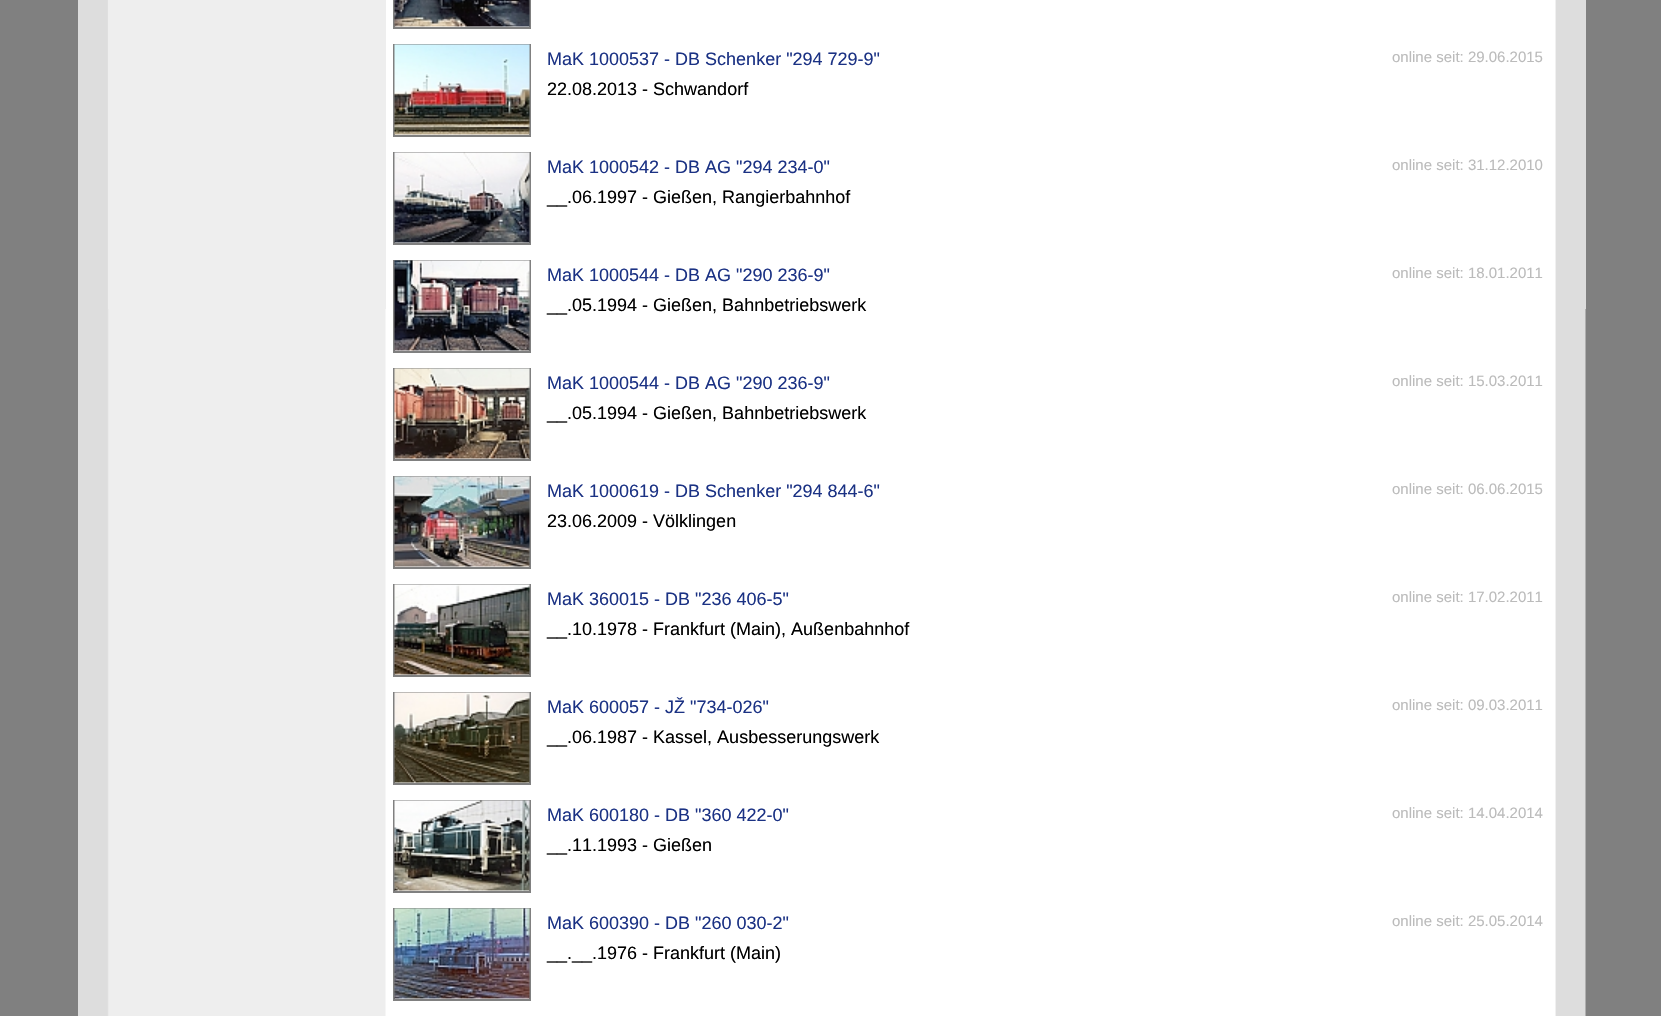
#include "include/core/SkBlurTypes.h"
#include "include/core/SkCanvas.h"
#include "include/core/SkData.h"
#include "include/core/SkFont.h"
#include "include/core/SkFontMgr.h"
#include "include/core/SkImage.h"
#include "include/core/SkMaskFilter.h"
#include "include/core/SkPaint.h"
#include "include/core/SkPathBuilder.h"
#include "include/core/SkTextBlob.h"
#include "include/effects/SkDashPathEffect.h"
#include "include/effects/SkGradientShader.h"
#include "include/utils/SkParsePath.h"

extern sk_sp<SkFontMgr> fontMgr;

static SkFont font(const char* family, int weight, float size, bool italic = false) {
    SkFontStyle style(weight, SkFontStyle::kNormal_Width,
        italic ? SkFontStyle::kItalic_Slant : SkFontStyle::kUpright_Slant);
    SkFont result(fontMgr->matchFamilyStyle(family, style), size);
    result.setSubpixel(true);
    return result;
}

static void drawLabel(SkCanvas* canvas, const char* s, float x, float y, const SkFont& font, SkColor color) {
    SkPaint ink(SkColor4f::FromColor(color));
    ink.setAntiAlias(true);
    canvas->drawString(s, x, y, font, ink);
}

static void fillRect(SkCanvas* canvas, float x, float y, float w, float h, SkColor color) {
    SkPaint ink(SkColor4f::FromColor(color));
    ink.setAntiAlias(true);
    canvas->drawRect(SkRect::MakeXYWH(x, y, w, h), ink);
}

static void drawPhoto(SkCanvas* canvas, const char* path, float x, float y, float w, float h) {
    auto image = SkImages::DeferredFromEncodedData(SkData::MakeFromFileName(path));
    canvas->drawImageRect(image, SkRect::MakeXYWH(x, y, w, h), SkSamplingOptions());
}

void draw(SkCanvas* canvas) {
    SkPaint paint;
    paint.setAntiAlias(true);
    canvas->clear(0xFF808080);
    drawPhoto(canvas, "assets/img1.png", 78, 0, 1508, 1016);
    fillRect(canvas, 108, 0, 278, 309, 0xFFEEEEEE);
    paint.setStroke(true);
    paint.setStrokeWidth(2);
    paint.setColor(0xFF808080);
    canvas->drawRect(SkRect::MakeXYWH(394, -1, 136, 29), paint);
    drawPhoto(canvas, "assets/img2.png", 394, 0, 136, 27);
    canvas->drawRect(SkRect::MakeXYWH(394, 45, 136, 91), paint);
    drawPhoto(canvas, "assets/img3.png", 394, 44, 136, 91);
    SkFont font1 = font("Liberation Sans", 400, 18);
    drawLabel(canvas, "MaK 1000537 - DB Schenker \"294 729-9\"", 547, 65, font1, 0xFF1B3284);
    SkFont font2 = font("Liberation Sans", 400, 15);
    drawLabel(canvas, "online seit: 29.06.2015", 1392, 62, font2, 0xFFBBBBBB);
    drawLabel(canvas, "22.08.2013 - Schwandorf", 547, 95, font1, 0xFF000000);
    canvas->drawRect(SkRect::MakeXYWH(394, 153, 136, 91), paint);
    drawPhoto(canvas, "assets/img4.png", 394, 152, 136, 91);
    drawLabel(canvas, "MaK 1000542 - DB AG \"294 234-0\"", 547, 173, font1, 0xFF1B3284);
    drawLabel(canvas, "online seit: 31.12.2010", 1392, 170, font2, 0xFFBBBBBB);
    drawLabel(canvas, "__.06.1997 - Gießen, Rangierbahnhof", 547, 203, font1, 0xFF000000);
    canvas->drawRect(SkRect::MakeXYWH(394, 261, 136, 91), paint);
    drawPhoto(canvas, "assets/img5.png", 394, 260, 136, 91);
    drawLabel(canvas, "MaK 1000544 - DB AG \"290 236-9\"", 547, 281, font1, 0xFF1B3284);
    drawLabel(canvas, "online seit: 18.01.2011", 1392, 278, font2, 0xFFBBBBBB);
    drawLabel(canvas, "__.05.1994 - Gießen, Bahnbetriebswerk", 547, 311, font1, 0xFF000000);
    canvas->drawRect(SkRect::MakeXYWH(394, 369, 136, 91), paint);
    drawPhoto(canvas, "assets/img6.png", 394, 368, 136, 91);
    drawLabel(canvas, "MaK 1000544 - DB AG \"290 236-9\"", 547, 389, font1, 0xFF1B3284);
    drawLabel(canvas, "online seit: 15.03.2011", 1392, 386, font2, 0xFFBBBBBB);
    drawLabel(canvas, "__.05.1994 - Gießen, Bahnbetriebswerk", 547, 419, font1, 0xFF000000);
    canvas->drawRect(SkRect::MakeXYWH(394, 477, 136, 91), paint);
    drawPhoto(canvas, "assets/img7.png", 394, 476, 136, 91);
    drawLabel(canvas, "MaK 1000619 - DB Schenker \"294 844-6\"", 547, 497, font1, 0xFF1B3284);
    drawLabel(canvas, "online seit: 06.06.2015", 1392, 494, font2, 0xFFBBBBBB);
    drawLabel(canvas, "23.06.2009 - Völklingen", 547, 527, font1, 0xFF000000);
    canvas->drawRect(SkRect::MakeXYWH(394, 585, 136, 91), paint);
    drawPhoto(canvas, "assets/img8.png", 394, 584, 136, 91);
    drawLabel(canvas, "MaK 360015 - DB \"236 406-5\"", 547, 605, font1, 0xFF1B3284);
    drawLabel(canvas, "online seit: 17.02.2011", 1392, 602, font2, 0xFFBBBBBB);
    drawLabel(canvas, "__.10.1978 - Frankfurt (Main), Außenbahnhof", 547, 635, font1, 0xFF000000);
    canvas->drawRect(SkRect::MakeXYWH(394, 693, 136, 91), paint);
    drawPhoto(canvas, "assets/img9.png", 394, 692, 136, 91);
    drawLabel(canvas, "MaK 600057 - JŽ \"734-026\"", 547, 713, font1, 0xFF1B3284);
    drawLabel(canvas, "online seit: 09.03.2011", 1392, 710, font2, 0xFFBBBBBB);
    drawLabel(canvas, "__.06.1987 - Kassel, Ausbesserungswerk", 547, 743, font1, 0xFF000000);
    canvas->drawRect(SkRect::MakeXYWH(394, 801, 136, 91), paint);
    drawPhoto(canvas, "assets/img10.png", 394, 800, 136, 91);
    drawLabel(canvas, "MaK 600180 - DB \"360 422-0\"", 547, 821, font1, 0xFF1B3284);
    drawLabel(canvas, "online seit: 14.04.2014", 1392, 818, font2, 0xFFBBBBBB);
    drawLabel(canvas, "__.11.1993 - Gießen", 547, 851, font1, 0xFF000000);
    canvas->drawRect(SkRect::MakeXYWH(394, 909, 136, 91), paint);
    drawPhoto(canvas, "assets/img11.png", 394, 908, 136, 91);
    drawLabel(canvas, "MaK 600390 - DB \"260 030-2\"", 547, 929, font1, 0xFF1B3284);
    drawLabel(canvas, "online seit: 25.05.2014", 1392, 926, font2, 0xFFBBBBBB);
    drawLabel(canvas, "__.__.1976 - Frankfurt (Main)", 547, 959, font1, 0xFF000000);
    fillRect(canvas, 1585, 0, 1, 309, 0xFFDDDDDD);
}
